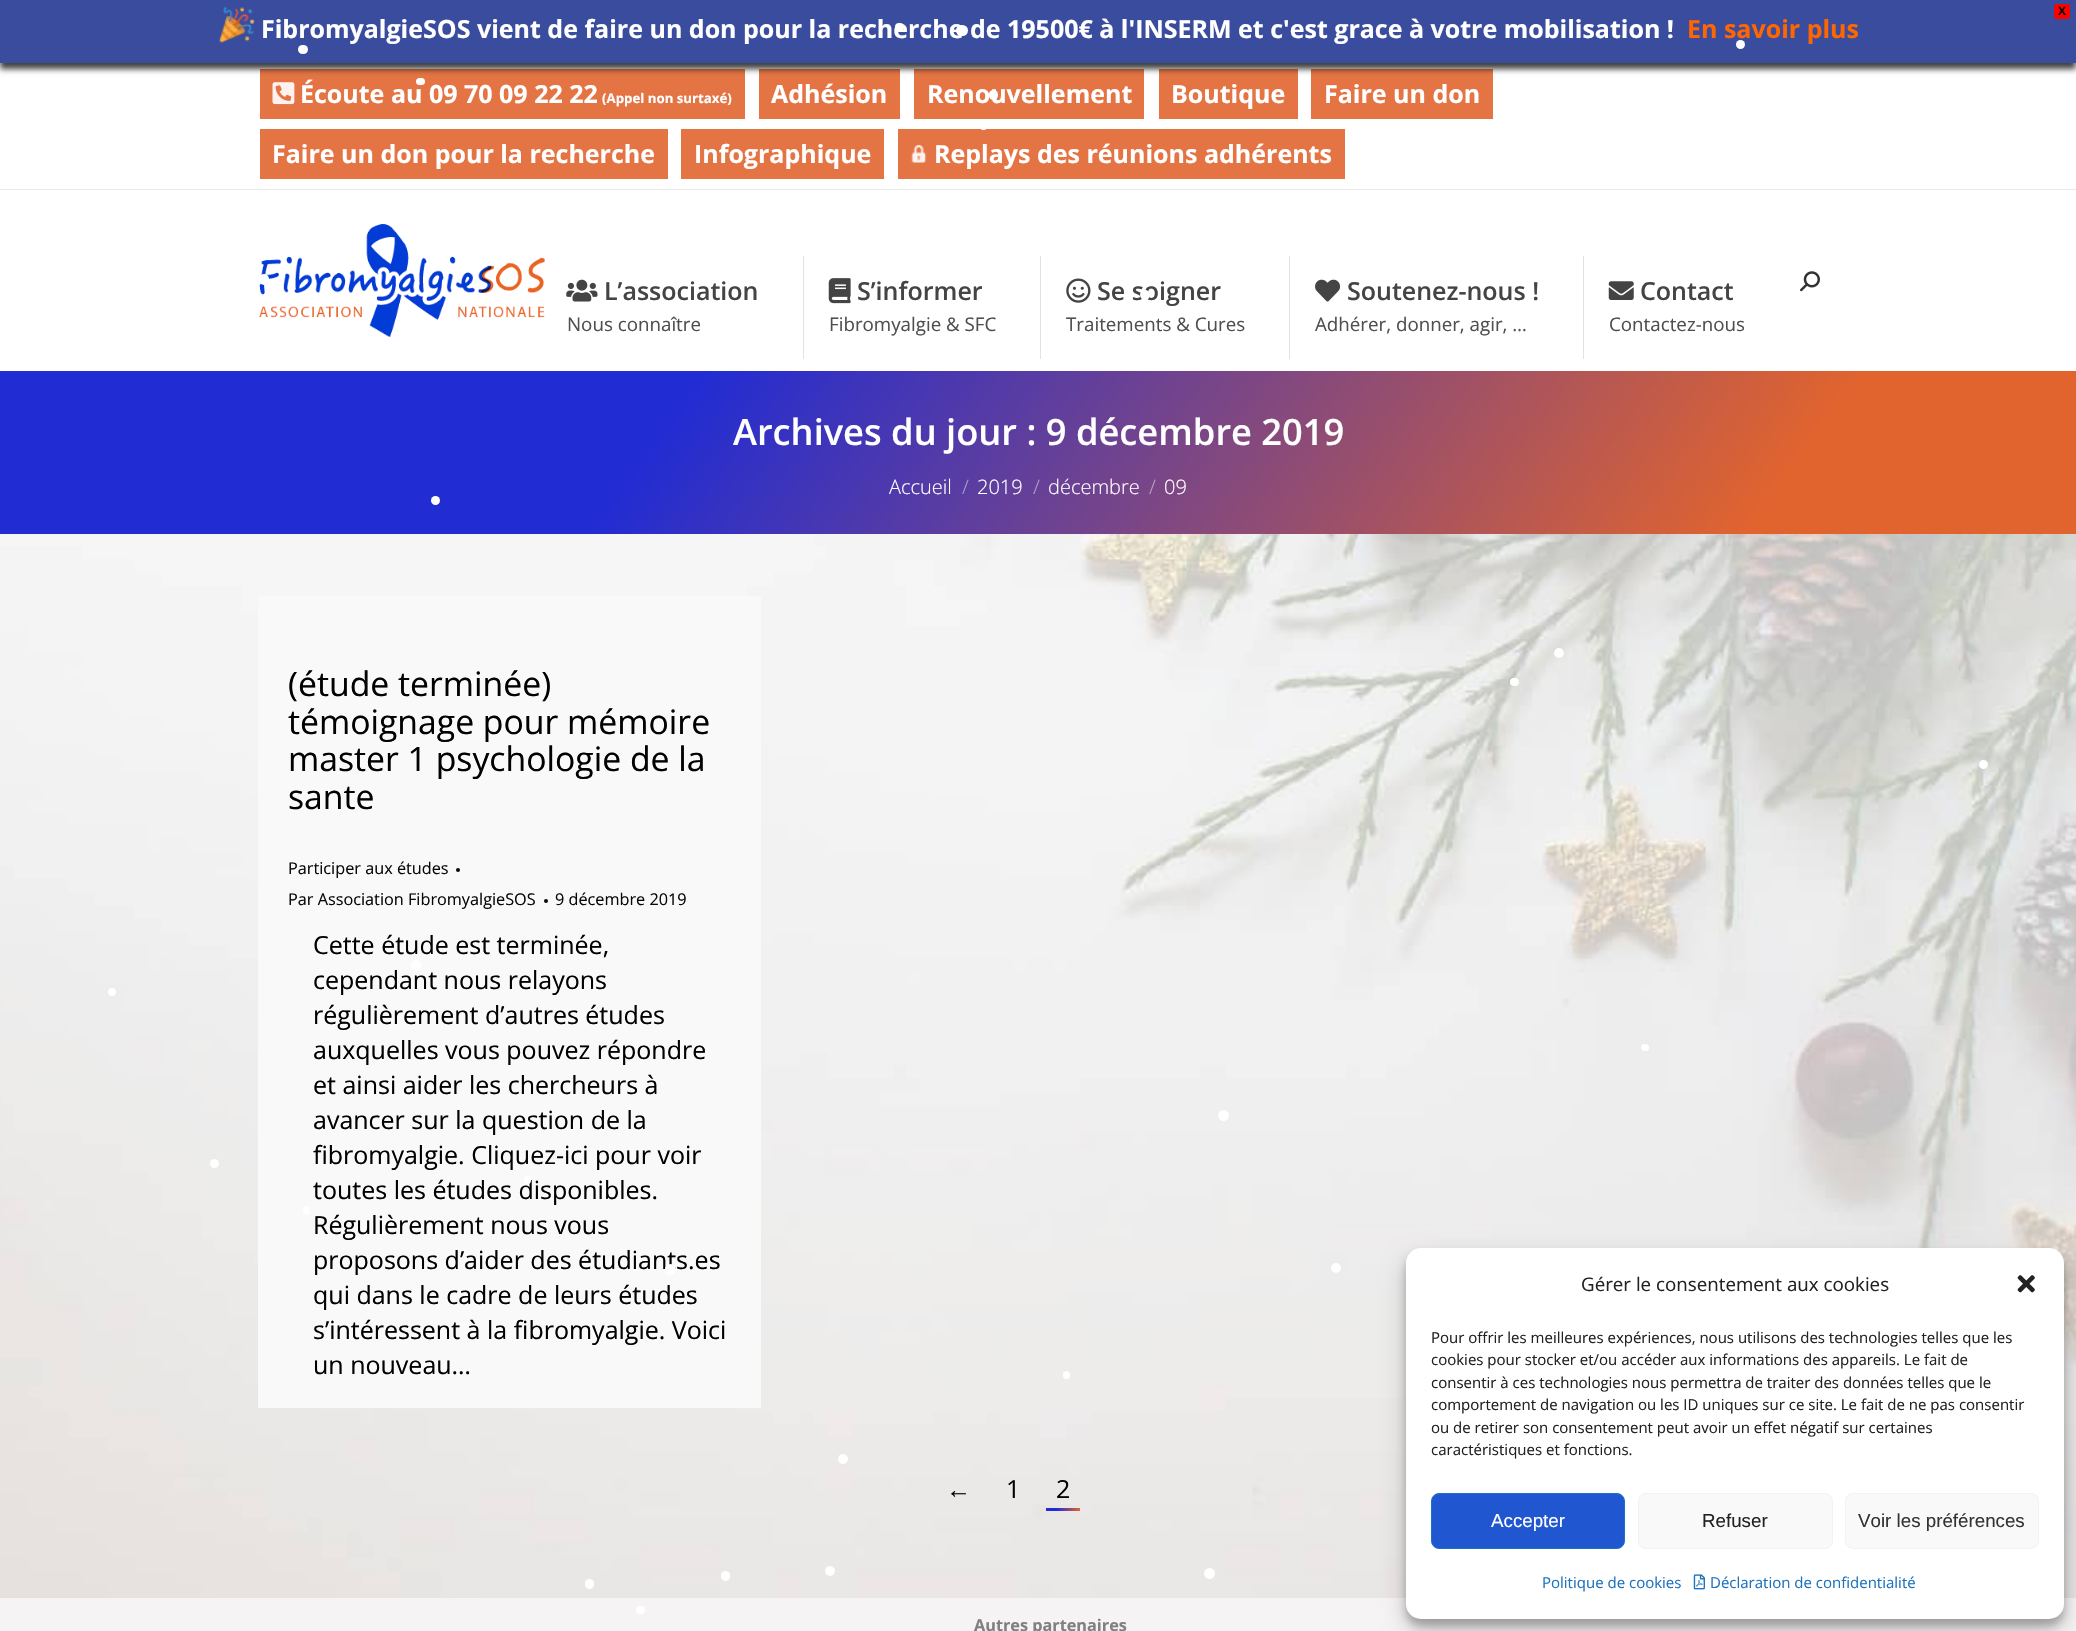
#include "include/core/SkBlurTypes.h"
#include "include/core/SkCanvas.h"
#include "include/core/SkData.h"
#include "include/core/SkFont.h"
#include "include/core/SkFontMgr.h"
#include "include/core/SkImage.h"
#include "include/core/SkMaskFilter.h"
#include "include/core/SkPaint.h"
#include "include/core/SkPathBuilder.h"
#include "include/core/SkTextBlob.h"
#include "include/effects/SkDashPathEffect.h"
#include "include/effects/SkGradientShader.h"
#include "include/utils/SkParsePath.h"

extern sk_sp<SkFontMgr> fontMgr;

static SkFont font(const char* family, int weight, float size, bool italic = false) {
    SkFontStyle style(weight, SkFontStyle::kNormal_Width,
        italic ? SkFontStyle::kItalic_Slant : SkFontStyle::kUpright_Slant);
    SkFont result(fontMgr->matchFamilyStyle(family, style), size);
    result.setSubpixel(true);
    return result;
}

static void drawLabel(SkCanvas* canvas, const char* s, float x, float y, const SkFont& font, SkColor color) {
    SkPaint ink(SkColor4f::FromColor(color));
    ink.setAntiAlias(true);
    canvas->drawString(s, x, y, font, ink);
}

static void fillRect(SkCanvas* canvas, float x, float y, float w, float h, SkColor color) {
    SkPaint ink(SkColor4f::FromColor(color));
    ink.setAntiAlias(true);
    canvas->drawRect(SkRect::MakeXYWH(x, y, w, h), ink);
}

static void fillRRect(SkCanvas* canvas, float x, float y, float w, float h, float radius, SkColor color) {
    SkPaint ink(SkColor4f::FromColor(color));
    ink.setAntiAlias(true);
    canvas->drawRoundRect(SkRect::MakeXYWH(x, y, w, h), radius, radius, ink);
}

static void drawPhoto(SkCanvas* canvas, const char* path, float x, float y, float w, float h) {
    auto image = SkImages::DeferredFromEncodedData(SkData::MakeFromFileName(path));
    canvas->drawImageRect(image, SkRect::MakeXYWH(x, y, w, h), SkSamplingOptions());
}

void draw(SkCanvas* canvas) {
    SkPaint paint;
    paint.setAntiAlias(true);
    canvas->clear(0xFFFFFFFF);
    fillRect(canvas, 260, 69, 485, 50, 0xFFE47443);
    fillRect(canvas, 759, 69, 141, 50, 0xFFE47443);
    fillRect(canvas, 914, 69, 230, 50, 0xFFE47443);
    fillRect(canvas, 1159, 69, 139, 50, 0xFFE47443);
    fillRect(canvas, 1311, 69, 182, 50, 0xFFE47443);
    paint.setColor(0xBF000000);
    paint.setMaskFilter(SkMaskFilter::MakeBlur(kNormal_SkBlurStyle, 3));
    canvas->drawRect(SkRect::MakeXYWH(0, 6, 2076, 63), paint);
    paint.setMaskFilter(nullptr);
    fillRect(canvas, 0, 0, 2076, 63, 0xFF3A4C9D);
    paint.setColor(0xFFFF0000);
    canvas->drawRoundRect(SkRect::MakeXYWH(2054.5f, 4.5f, 15, 14), 2, 2, paint);
    paint.setStroke(true);
    paint.setStrokeWidth(1);
    canvas->drawRoundRect(SkRect::MakeXYWH(2054.5f, 4.5f, 15, 14), 2, 2, paint);
    SkFont font1 = font("Liberation Sans", 700, 12);
    drawLabel(canvas, "X", 2058, 15, font1, 0xFF020000);
    drawPhoto(canvas, "assets/img1.png", 218, 6, 37, 37);
    SkFont font2 = font("Open Sans", 700, 25);
    drawLabel(canvas, "FibromyalgieSOS vient de faire un don pour la recherche de 19 500 € à l'INSERM et c'est grace à votre mobilisation !", 261, 38, font2, 0xFFFFFFFF);
    drawLabel(canvas, "En savoir plus", 1687, 38, font2, 0xFFFF6600);
    fillRRect(canvas, 895, 23, 9, 8, 4, 0xFFFFFFFF);
    fillRRect(canvas, 956, 25, 12, 11, 5.5f, 0xFFFFFFFF);
    fillRRect(canvas, 298, 45, 10, 9, 4.5f, 0xFFFFFFFF);
    paint.setStroke(false);
    paint.setColor(0xFFFFFFFF);
    canvas->drawCircle(1740.5f, 44.5f, 4.5f, paint);
    fillRRect(canvas, 416, 78, 9, 7, 3.5f, 0xFFFFFFFF);
    drawPhoto(canvas, "assets/img2.png", 272, 82, 23, 23);
    drawLabel(canvas, "Écoute au 09 70 09 22 22", 300, 103, font2, 0xFFFFFFFF);
    SkFont font3 = font("Open Sans", 700, 13.25f);
    drawLabel(canvas, "(Appel non surtaxé)", 602, 103, font3, 0xFFFFFFFF);
    drawLabel(canvas, "Adhésion", 771, 103, font2, 0xFFFFFFFF);
    drawLabel(canvas, "Renouvellement", 927, 103, font2, 0xFFFFFFFF);
    drawLabel(canvas, "Boutique", 1171, 103, font2, 0xFFFFFFFF);
    drawLabel(canvas, "Faire un don", 1324, 103, font2, 0xFFFFFFFF);
    fillRect(canvas, 260, 129, 408, 50, 0xFFE47443);
    drawLabel(canvas, "Faire un don pour la recherche", 272, 163, font2, 0xFFFFFFFF);
    fillRect(canvas, 681, 129, 203, 50, 0xFFE47443);
    drawLabel(canvas, "Infographique", 694, 163, font2, 0xFFFFFFFF);
    fillRect(canvas, 898, 129, 447, 50, 0xFFE47443);
    drawPhoto(canvas, "assets/img3.png", 911, 145, 16, 18);
    drawLabel(canvas, "Replays des réunions adhérents", 934, 163, font2, 0xFFFFFFFF);
    fillRect(canvas, 0, 189, 2076, 1, 0xFFE9E9E9);
    drawPhoto(canvas, "assets/img4.png", 259, 224, 286, 114);
    drawPhoto(canvas, "assets/img5.png", 566, 279, 32, 23);
    SkFont font4 = font("Open Sans", 600, 25);
    drawLabel(canvas, "L’association", 604, 300, font4, 0xFF444444);
    SkFont font5 = font("Open Sans", 400, 18.75f);
    drawLabel(canvas, "Nous connaître", 567, 331, font5, 0xFF4F4F4F);
    fillRect(canvas, 803, 256, 1, 103, 0xFFE2E2E2);
    drawPhoto(canvas, "assets/img6.png", 828, 278, 23, 26);
    drawLabel(canvas, "S’informer", 857, 300, font4, 0xFF444444);
    drawLabel(canvas, "Fibromyalgie & SFC", 829, 331, font5, 0xFF4F4F4F);
    fillRect(canvas, 1040, 256, 1, 103, 0xFFE2E2E2);
    drawPhoto(canvas, "assets/img7.png", 1066, 278, 25, 25);
    drawLabel(canvas, "Se soigner", 1097, 300, font4, 0xFF444444);
    drawLabel(canvas, "Traitements & Cures", 1066, 331, font5, 0xFF4F4F4F);
    fillRect(canvas, 1289, 256, 1, 103, 0xFFE2E2E2);
    drawPhoto(canvas, "assets/img8.png", 1315, 279, 26, 23);
    drawLabel(canvas, "Soutenez-nous !", 1347, 300, font4, 0xFF444444);
    drawLabel(canvas, "Adhérer, donner, agir, …", 1315, 331, font5, 0xFF4F4F4F);
    fillRect(canvas, 1583, 256, 1, 103, 0xFFE2E2E2);
    drawPhoto(canvas, "assets/img9.png", 1608, 281, 26, 19);
    drawLabel(canvas, "Contact", 1640, 300, font4, 0xFF444444);
    drawLabel(canvas, "Contactez-nous", 1609, 331, font5, 0xFF4F4F4F);
    drawPhoto(canvas, "assets/img10.png", 1800, 271, 20, 21);
    {
        const SkColor colors[] = {0xFF212CD3, 0xFFE1642E};
        const float stops[] = {0.32f, 0.85f};
        const SkPoint ends[] = {{320, -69}, {1756, 974}};
        paint.setShader(SkGradientShader::MakeLinear(ends, colors, stops, 2, SkTileMode::kClamp));
        paint.setAlpha(255);
    }
    canvas->drawRect(SkRect::MakeXYWH(0, 371, 2076, 163), paint);
    SkFont font6 = font("Open Sans", 600, 36.25f);
    drawLabel(canvas, "Archives du jour : 9 décembre 2019", 733, 445, font6, 0xFFFFFFFF);
    SkFont font7 = font("Open Sans", 300, 20);
    drawLabel(canvas, "Accueil", 889, 494, font7, 0xFFFFFFFF);
    drawLabel(canvas, "/", 962, 494, font7, 0xFFAD9ED0);
    drawLabel(canvas, "2019", 977, 494, font7, 0xFFFFFFFF);
    drawLabel(canvas, "/", 1033, 494, font7, 0xFFB3A0CB);
    drawLabel(canvas, "décembre", 1048, 494, font7, 0xFFFFFFFF);
    drawLabel(canvas, "/", 1149, 494, font7, 0xFFBCA3C3);
    drawLabel(canvas, "09", 1164, 494, font7, 0xFFFFFFFF);
    drawPhoto(canvas, "assets/img11.png", 0, 534, 2076, 1064);
    fillRect(canvas, 258, 596, 503, 812, 0xFFF9F9F9);
    SkFont font8 = font("Open Sans", 400, 33.75f);
    drawLabel(canvas, "(étude terminée)", 288, 696, font8, 0xFF020000);
    drawLabel(canvas, "témoignage pour mémoire", 288, 734, font8, 0xFF020000);
    drawLabel(canvas, "master 1 psychologie de la", 288, 771, font8, 0xFF020000);
    drawLabel(canvas, "sante", 288, 809, font8, 0xFF020000);
    SkFont font9 = font("Open Sans", 400, 16.25f);
    drawLabel(canvas, "Participer aux études", 288, 874, font9, 0xFF0A0909);
    paint.setShader(nullptr);
    paint.setColor(0xFF0A0909);
    canvas->drawCircle(458, 870, 2, paint);
    drawLabel(canvas, "Par Association FibromyalgieSOS", 288, 905, font9, 0xFF0A0909);
    canvas->drawCircle(546, 901, 2, paint);
    drawLabel(canvas, "9 décembre 2019", 555, 905, font9, 0xFF0A0909);
    SkFont font10 = font("Open Sans", 400, 25);
    drawLabel(canvas, "Cette étude est terminée,", 313, 954, font10, 0xFF020000);
    drawLabel(canvas, "cependant nous relayons", 313, 989, font10, 0xFF020000);
    drawLabel(canvas, "régulièrement d’autres études", 313, 1024, font10, 0xFF020000);
    drawLabel(canvas, "auxquelles vous pouvez répondre", 313, 1059, font10, 0xFF020000);
    drawLabel(canvas, "et ainsi aider les chercheurs à", 313, 1094, font10, 0xFF020000);
    drawLabel(canvas, "avancer sur la question de la", 313, 1129, font10, 0xFF020000);
    drawLabel(canvas, "fibromyalgie. Cliquez-ici pour voir", 313, 1164, font10, 0xFF020000);
    drawLabel(canvas, "toutes les études disponibles.", 313, 1199, font10, 0xFF020000);
    drawLabel(canvas, "Régulièrement nous vous", 313, 1234, font10, 0xFF020000);
    drawLabel(canvas, "proposons d’aider des étudiants.es", 313, 1269, font10, 0xFF020000);
    drawLabel(canvas, "qui dans le cadre de leurs études", 313, 1304, font10, 0xFF020000);
    drawLabel(canvas, "s’intéressent à la fibromyalgie. Voici", 313, 1339, font10, 0xFF020000);
    drawLabel(canvas, "un nouveau…", 313, 1374, font10, 0xFF020000);
    SkFont font11 = font("Liberation Sans", 400, 25);
    drawLabel(canvas, "←", 946, 1498, font11, 0xFF020000);
    drawLabel(canvas, "1", 1006, 1498, font10, 0xFF020000);
    drawLabel(canvas, "2", 1056, 1498, font10, 0xFF020000);
    {
        const SkColor colors[] = {0xFF212CD3, 0xFFE1642E};
        const float stops[] = {0.3f, 1};
        const SkPoint ends[] = {{1046, 1509}, {1080, 1509}};
        paint.setShader(SkGradientShader::MakeLinear(ends, colors, stops, 2, SkTileMode::kClamp));
        paint.setAlpha(255);
    }
    canvas->drawRect(SkRect::MakeXYWH(1046, 1508, 34, 3), paint);
    fillRect(canvas, 0, 1598, 2076, 33, 0xFFF5F3F3);
    SkFont font12 = font("Open Sans", 700, 16.25f);
    drawLabel(canvas, "Autres partenaires", 974, 1631, font12, 0xFF808080);
    fillRRect(canvas, 989, 90, 9, 10, 4.5f, 0xFFFFFFFF);
    paint.setShader(nullptr);
    paint.setColor(0xFFFFFFFF);
    canvas->drawCircle(983.5f, 125.5f, 4.5f, paint);
    fillRRect(canvas, 259, 274, 10, 11, 5, 0xFFFFFFFF);
    canvas->drawCircle(1145, 295, 5, paint);
    canvas->drawCircle(435.5f, 500.5f, 4.5f, paint);
    canvas->drawCircle(1559, 653, 5, paint);
    fillRRect(canvas, 1510, 678, 9, 8, 4, 0xFFFFFFFF);
    canvas->drawCircle(1983.5f, 764.5f, 4.5f, paint);
    fillRRect(canvas, 411, 960, 10, 11, 5, 0xFFFFFFFF);
    canvas->drawCircle(112, 992, 4, paint);
    fillRRect(canvas, 1641, 1044, 8, 7, 3.5f, 0xFFFFFFFF);
    canvas->drawCircle(1223.5f, 1115.5f, 5.5f, paint);
    canvas->drawCircle(214.5f, 1163.5f, 4.5f, paint);
    fillRRect(canvas, 524, 1176, 7, 8, 3.5f, 0xFFFFFFFF);
    fillRRect(canvas, 303, 1206, 7, 9, 3.5f, 0xFFFFFFFF);
    canvas->drawCircle(670.5f, 1269.5f, 5.5f, paint);
    canvas->drawCircle(1336, 1268, 5, paint);
    fillRRect(canvas, 1063, 1371, 7, 8, 3.5f, 0xFFFFFFFF);
    paint.setColor(0x3B000000);
    paint.setMaskFilter(SkMaskFilter::MakeBlur(kNormal_SkBlurStyle, 4));
    canvas->drawRoundRect(SkRect::MakeXYWH(1406, 1255, 658, 371), 15, 15, paint);
    paint.setMaskFilter(nullptr);
    paint.setColor(0x30000000);
    paint.setMaskFilter(SkMaskFilter::MakeBlur(kNormal_SkBlurStyle, 12.5f));
    canvas->drawRoundRect(SkRect::MakeXYWH(1406, 1260, 658, 371), 15, 15, paint);
    paint.setMaskFilter(nullptr);
    fillRRect(canvas, 1406, 1248, 658, 371, 15, 0xFFFFFFFF);
    drawLabel(canvas, "Gérer le consentement aux cookies", 1581, 1291, font5, 0xFF222222);
    drawPhoto(canvas, "assets/img12.png", 2017, 1275, 18, 18);
    SkFont font13 = font("Open Sans", 400, 15);
    drawLabel(canvas, "Pour offrir les meilleures expériences, nous utilisons des technologies telles que les", 1431, 1343, font13, 0xFF222222);
    drawLabel(canvas, "cookies pour stocker et/ou accéder aux informations des appareils. Le fait de", 1431, 1365, font13, 0xFF222222);
    drawLabel(canvas, "consentir à ces technologies nous permettra de traiter des données telles que le", 1431, 1388, font13, 0xFF222222);
    drawLabel(canvas, "comportement de navigation ou les ID uniques sur ce site. Le fait de ne pas consentir", 1431, 1410, font13, 0xFF222222);
    drawLabel(canvas, "ou de retirer son consentement peut avoir un effet négatif sur certaines", 1431, 1433, font13, 0xFF222222);
    drawLabel(canvas, "caractéristiques et fonctions.", 1431, 1455, font13, 0xFF222222);
    paint.setColor(0xFF2156D1);
    canvas->drawRoundRect(SkRect::MakeXYWH(1431.5f, 1493.5f, 193, 55), 7.5f, 7.5f, paint);
    paint.setStroke(true);
    paint.setColor(0xFF1E73BE);
    canvas->drawRoundRect(SkRect::MakeXYWH(1431.5f, 1493.5f, 193, 55), 7.5f, 7.5f, paint);
    SkFont font14 = font("Liberation Sans", 400, 18.75f);
    drawLabel(canvas, "Accepter", 1491, 1527, font14, 0xFFFFFFFF);
    paint.setStroke(false);
    paint.setColor(0xFFF9F9F9);
    canvas->drawRoundRect(SkRect::MakeXYWH(1638.5f, 1493.5f, 194, 55), 7.5f, 7.5f, paint);
    paint.setStroke(true);
    paint.setColor(0xFFF2F2F2);
    canvas->drawRoundRect(SkRect::MakeXYWH(1638.5f, 1493.5f, 194, 55), 7.5f, 7.5f, paint);
    drawLabel(canvas, "Refuser", 1702, 1527, font14, 0xFF222222);
    paint.setStroke(false);
    paint.setColor(0xFFF9F9F9);
    canvas->drawRoundRect(SkRect::MakeXYWH(1845.5f, 1493.5f, 193, 55), 7.5f, 7.5f, paint);
    paint.setStroke(true);
    paint.setColor(0xFFF2F2F2);
    canvas->drawRoundRect(SkRect::MakeXYWH(1845.5f, 1493.5f, 193, 55), 7.5f, 7.5f, paint);
    drawLabel(canvas, "Voir les préférences", 1858, 1527, font14, 0xFF333333);
    drawLabel(canvas, "Politique de cookies", 1542, 1588, font13, 0xFF1E73BE);
    drawPhoto(canvas, "assets/img13.png", 1693, 1574, 12, 16);
    drawLabel(canvas, "Déclaration de confidentialité", 1710, 1588, font13, 0xFF1E73BE);
    paint.setStroke(false);
    paint.setColor(0xFFFFFFFF);
    canvas->drawCircle(843, 1459, 5, paint);
    fillRRect(canvas, 721, 1571, 9, 10, 4.5f, 0xFFFFFFFF);
    canvas->drawCircle(830, 1571, 5, paint);
    canvas->drawCircle(1209.5f, 1573.5f, 5.5f, paint);
    fillRRect(canvas, 585, 1579, 9, 10, 4.5f, 0xFFFFFFFF);
    fillRRect(canvas, 636, 1606, 9, 8, 4, 0xFFFFFFFF);
}
